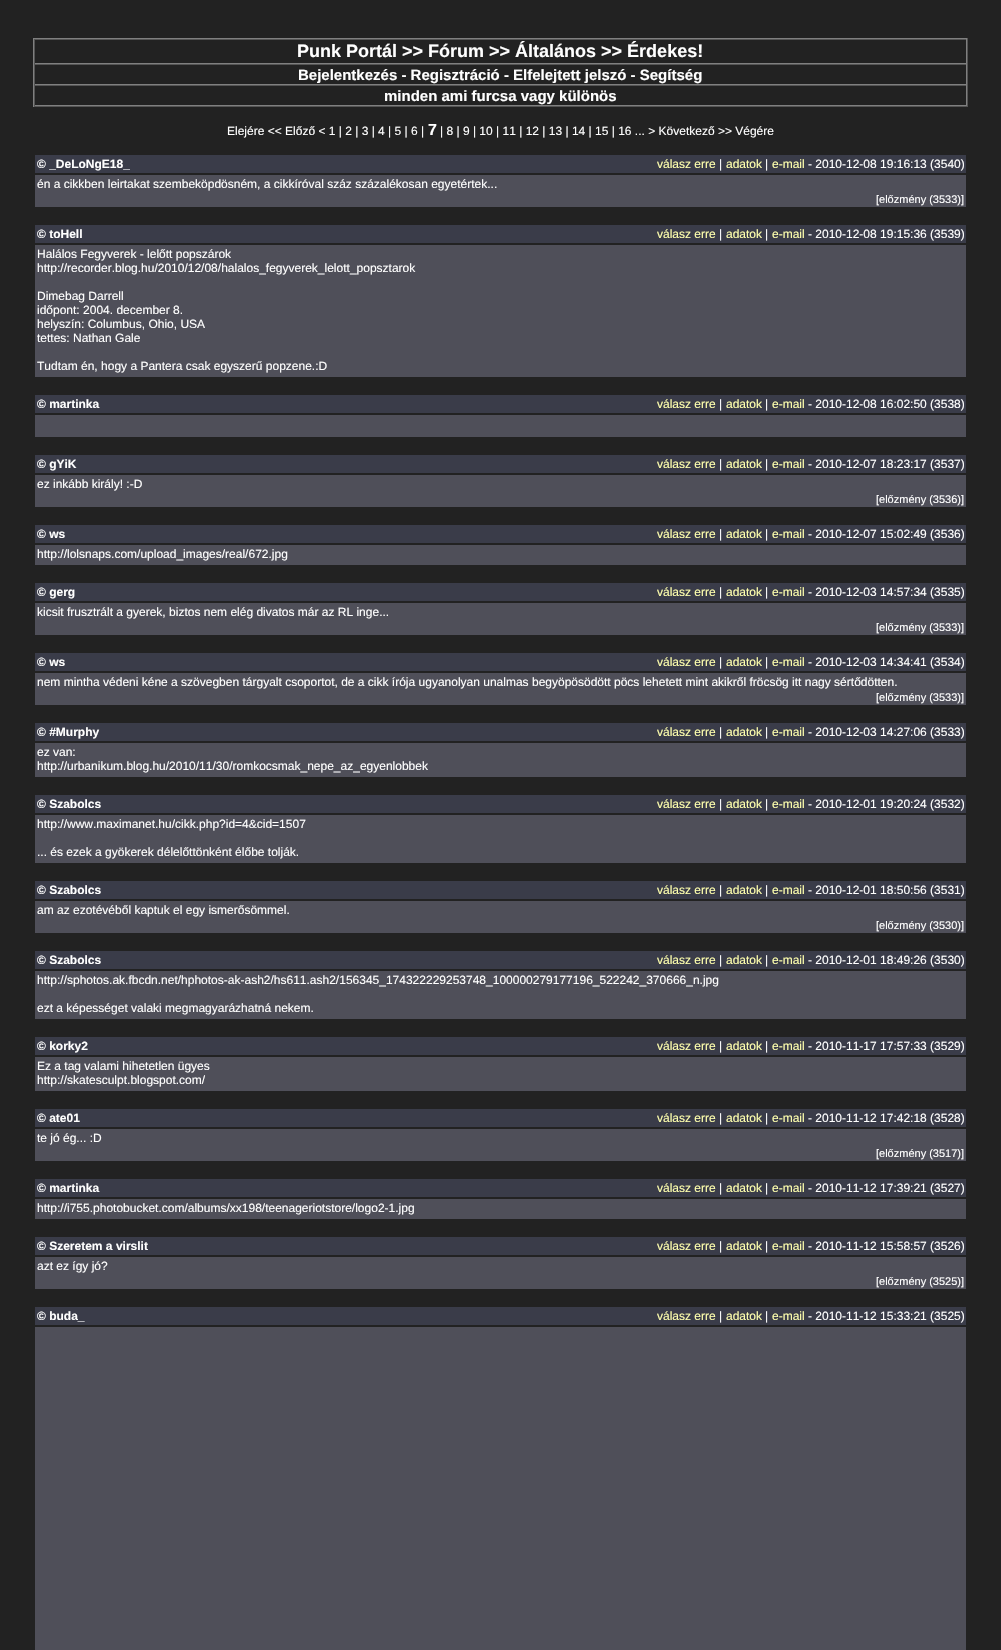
#include "include/core/SkBlurTypes.h"
#include "include/core/SkCanvas.h"
#include "include/core/SkData.h"
#include "include/core/SkFont.h"
#include "include/core/SkFontMgr.h"
#include "include/core/SkImage.h"
#include "include/core/SkMaskFilter.h"
#include "include/core/SkPaint.h"
#include "include/core/SkPathBuilder.h"
#include "include/core/SkTextBlob.h"
#include "include/effects/SkDashPathEffect.h"
#include "include/effects/SkGradientShader.h"
#include "include/utils/SkParsePath.h"

extern sk_sp<SkFontMgr> fontMgr;

static SkFont font(const char* family, int weight, float size, bool italic = false) {
    SkFontStyle style(weight, SkFontStyle::kNormal_Width,
        italic ? SkFontStyle::kItalic_Slant : SkFontStyle::kUpright_Slant);
    SkFont result(fontMgr->matchFamilyStyle(family, style), size);
    result.setSubpixel(true);
    return result;
}

static void drawLabel(SkCanvas* canvas, const char* s, float x, float y, const SkFont& font, SkColor color) {
    SkPaint ink(SkColor4f::FromColor(color));
    ink.setAntiAlias(true);
    canvas->drawString(s, x, y, font, ink);
}

static void fillRect(SkCanvas* canvas, float x, float y, float w, float h, SkColor color) {
    SkPaint ink(SkColor4f::FromColor(color));
    ink.setAntiAlias(true);
    canvas->drawRect(SkRect::MakeXYWH(x, y, w, h), ink);
}

void draw(SkCanvas* canvas) {
    SkPaint paint;
    paint.setAntiAlias(true);
    canvas->clear(0xFF222222);
    fillRect(canvas, 33, 38, 935, 1, 0xFF808080);
    fillRect(canvas, 967, 38, 1, 69, 0xFF555555);
    fillRect(canvas, 33, 106, 935, 1, 0xFF555555);
    fillRect(canvas, 33, 38, 1, 69, 0xFF808080);
    fillRect(canvas, 34, 39, 933, 1, 0xFF555555);
    fillRect(canvas, 966, 39, 1, 25, 0xFF808080);
    fillRect(canvas, 34, 63, 933, 1, 0xFF808080);
    fillRect(canvas, 34, 39, 1, 25, 0xFF555555);
    SkFont font1 = font("Liberation Sans", 700, 18);
    drawLabel(canvas, "Punk Portál >> Fórum >> Általános >> Érdekes!", 297, 57, font1, 0xFFFFFFFF);
    fillRect(canvas, 34, 64, 933, 1, 0xFF555555);
    fillRect(canvas, 966, 64, 1, 21, 0xFF808080);
    fillRect(canvas, 34, 84, 933, 1, 0xFF808080);
    fillRect(canvas, 34, 64, 1, 21, 0xFF555555);
    SkFont font2 = font("Liberation Sans", 700, 15);
    drawLabel(canvas, "Bejelentkezés - Regisztráció - Elfelejtett jelszó - Segítség", 298, 80, font2, 0xFFFFFFFF);
    fillRect(canvas, 34, 85, 933, 1, 0xFF555555);
    fillRect(canvas, 966, 85, 1, 21, 0xFF808080);
    fillRect(canvas, 34, 105, 933, 1, 0xFF808080);
    fillRect(canvas, 34, 85, 1, 21, 0xFF555555);
    drawLabel(canvas, "minden ami furcsa vagy különös", 384, 101, font2, 0xFFFFFFFF);
    SkFont font3 = font("Liberation Sans", 400, 12);
    drawLabel(canvas, "Elejére << Előző < 1 | 2 | 3 | 4 | 5 | 6 |", 227, 135, font3, 0xFFFFFFFF);
    SkFont font4 = font("Liberation Sans", 700, 16);
    drawLabel(canvas, "7", 428, 135, font4, 0xFFFFFFFF);
    drawLabel(canvas, "| 8 | 9 | 10 | 11 | 12 | 13 | 14 | 15 | 16 ... > Következő >> Végére", 440, 135, font3, 0xFFFFFFFF);
    fillRect(canvas, 35, 155, 931, 18, 0xFF3A3C49);
    SkFont font5 = font("Liberation Sans", 700, 12);
    drawLabel(canvas, "© _DeLoNgE18_", 37, 168, font5, 0xFFFFFFFF);
    drawLabel(canvas, "válasz erre", 657, 168, font3, 0xFFFEFFAD);
    drawLabel(canvas, "|", 719, 168, font3, 0xFFFFFFFF);
    drawLabel(canvas, "adatok", 726, 168, font3, 0xFFFEFFAD);
    drawLabel(canvas, "|", 765, 168, font3, 0xFFFFFFFF);
    drawLabel(canvas, "e-mail", 772, 168, font3, 0xFFFEFFAD);
    drawLabel(canvas, "- 2010-12-08 19:16:13 (3540)", 808, 168, font3, 0xFFFFFFFF);
    fillRect(canvas, 35, 175, 931, 32, 0xFF4F4F59);
    drawLabel(canvas, "én a cikkben leirtakat szembeköpdösném, a cikkíróval száz százalékosan egyetértek...", 37, 188, font3, 0xFFFFFFFF);
    SkFont font6 = font("Liberation Sans", 400, 11);
    drawLabel(canvas, "[előzmény (3533)]", 876, 203, font6, 0xFFFFFFFF);
    fillRect(canvas, 35, 225, 931, 18, 0xFF3A3C49);
    drawLabel(canvas, "© toHell", 37, 238, font5, 0xFFFFFFFF);
    drawLabel(canvas, "válasz erre", 657, 238, font3, 0xFFFEFFAD);
    drawLabel(canvas, "|", 719, 238, font3, 0xFFFFFFFF);
    drawLabel(canvas, "adatok", 726, 238, font3, 0xFFFEFFAD);
    drawLabel(canvas, "|", 765, 238, font3, 0xFFFFFFFF);
    drawLabel(canvas, "e-mail", 772, 238, font3, 0xFFFEFFAD);
    drawLabel(canvas, "- 2010-12-08 19:15:36 (3539)", 808, 238, font3, 0xFFFFFFFF);
    fillRect(canvas, 35, 245, 931, 132, 0xFF4F4F59);
    drawLabel(canvas, "Halálos Fegyverek - lelőtt popszárok", 37, 258, font3, 0xFFFFFFFF);
    drawLabel(canvas, "http://recorder.blog.hu/2010/12/08/halalos_fegyverek_lelott_popsztarok", 37, 272, font3, 0xFFFFFFFF);
    drawLabel(canvas, "Dimebag Darrell", 37, 300, font3, 0xFFFFFFFF);
    drawLabel(canvas, "időpont: 2004. december 8.", 37, 314, font3, 0xFFFFFFFF);
    drawLabel(canvas, "helyszín: Columbus, Ohio, USA", 37, 328, font3, 0xFFFFFFFF);
    drawLabel(canvas, "tettes: Nathan Gale", 37, 342, font3, 0xFFFFFFFF);
    drawLabel(canvas, "Tudtam én, hogy a Pantera csak egyszerű popzene.:D", 37, 370, font3, 0xFFFFFFFF);
    fillRect(canvas, 35, 395, 931, 18, 0xFF3A3C49);
    drawLabel(canvas, "© martinka", 37, 408, font5, 0xFFFFFFFF);
    drawLabel(canvas, "válasz erre", 657, 408, font3, 0xFFFEFFAD);
    drawLabel(canvas, "|", 719, 408, font3, 0xFFFFFFFF);
    drawLabel(canvas, "adatok", 726, 408, font3, 0xFFFEFFAD);
    drawLabel(canvas, "|", 765, 408, font3, 0xFFFFFFFF);
    drawLabel(canvas, "e-mail", 772, 408, font3, 0xFFFEFFAD);
    drawLabel(canvas, "- 2010-12-08 16:02:50 (3538)", 808, 408, font3, 0xFFFFFFFF);
    fillRect(canvas, 35, 415, 931, 22, 0xFF4F4F59);
    fillRect(canvas, 35, 455, 931, 18, 0xFF3A3C49);
    drawLabel(canvas, "© gYiK", 37, 468, font5, 0xFFFFFFFF);
    drawLabel(canvas, "válasz erre", 657, 468, font3, 0xFFFEFFAD);
    drawLabel(canvas, "|", 719, 468, font3, 0xFFFFFFFF);
    drawLabel(canvas, "adatok", 726, 468, font3, 0xFFFEFFAD);
    drawLabel(canvas, "|", 765, 468, font3, 0xFFFFFFFF);
    drawLabel(canvas, "e-mail", 772, 468, font3, 0xFFFEFFAD);
    drawLabel(canvas, "- 2010-12-07 18:23:17 (3537)", 808, 468, font3, 0xFFFFFFFF);
    fillRect(canvas, 35, 475, 931, 32, 0xFF4F4F59);
    drawLabel(canvas, "ez inkább király! :-D", 37, 488, font3, 0xFFFFFFFF);
    drawLabel(canvas, "[előzmény (3536)]", 876, 503, font6, 0xFFFFFFFF);
    fillRect(canvas, 35, 525, 931, 18, 0xFF3A3C49);
    drawLabel(canvas, "© ws", 37, 538, font5, 0xFFFFFFFF);
    drawLabel(canvas, "válasz erre", 657, 538, font3, 0xFFFEFFAD);
    drawLabel(canvas, "|", 719, 538, font3, 0xFFFFFFFF);
    drawLabel(canvas, "adatok", 726, 538, font3, 0xFFFEFFAD);
    drawLabel(canvas, "|", 765, 538, font3, 0xFFFFFFFF);
    drawLabel(canvas, "e-mail", 772, 538, font3, 0xFFFEFFAD);
    drawLabel(canvas, "- 2010-12-07 15:02:49 (3536)", 808, 538, font3, 0xFFFFFFFF);
    fillRect(canvas, 35, 545, 931, 20, 0xFF4F4F59);
    drawLabel(canvas, "http://lolsnaps.com/upload_images/real/672.jpg", 37, 558, font3, 0xFFFFFFFF);
    fillRect(canvas, 35, 583, 931, 18, 0xFF3A3C49);
    drawLabel(canvas, "© gerg", 37, 596, font5, 0xFFFFFFFF);
    drawLabel(canvas, "válasz erre", 657, 596, font3, 0xFFFEFFAD);
    drawLabel(canvas, "|", 719, 596, font3, 0xFFFFFFFF);
    drawLabel(canvas, "adatok", 726, 596, font3, 0xFFFEFFAD);
    drawLabel(canvas, "|", 765, 596, font3, 0xFFFFFFFF);
    drawLabel(canvas, "e-mail", 772, 596, font3, 0xFFFEFFAD);
    drawLabel(canvas, "- 2010-12-03 14:57:34 (3535)", 808, 596, font3, 0xFFFFFFFF);
    fillRect(canvas, 35, 603, 931, 32, 0xFF4F4F59);
    drawLabel(canvas, "kicsit frusztrált a gyerek, biztos nem elég divatos már az RL inge...", 37, 616, font3, 0xFFFFFFFF);
    drawLabel(canvas, "[előzmény (3533)]", 876, 631, font6, 0xFFFFFFFF);
    fillRect(canvas, 35, 653, 931, 18, 0xFF3A3C49);
    drawLabel(canvas, "© ws", 37, 666, font5, 0xFFFFFFFF);
    drawLabel(canvas, "válasz erre", 657, 666, font3, 0xFFFEFFAD);
    drawLabel(canvas, "|", 719, 666, font3, 0xFFFFFFFF);
    drawLabel(canvas, "adatok", 726, 666, font3, 0xFFFEFFAD);
    drawLabel(canvas, "|", 765, 666, font3, 0xFFFFFFFF);
    drawLabel(canvas, "e-mail", 772, 666, font3, 0xFFFEFFAD);
    drawLabel(canvas, "- 2010-12-03 14:34:41 (3534)", 808, 666, font3, 0xFFFFFFFF);
    fillRect(canvas, 35, 673, 931, 32, 0xFF4F4F59);
    drawLabel(canvas, "nem mintha védeni kéne a szövegben tárgyalt csoportot, de a cikk írója ugyanolyan unalmas begyöpösödött pöcs lehetett mint akikről fröcsög itt nagy sértődötten.", 37, 686, font3, 0xFFFFFFFF);
    drawLabel(canvas, "[előzmény (3533)]", 876, 701, font6, 0xFFFFFFFF);
    fillRect(canvas, 35, 723, 931, 18, 0xFF3A3C49);
    drawLabel(canvas, "© #Murphy", 37, 736, font5, 0xFFFFFFFF);
    drawLabel(canvas, "válasz erre", 657, 736, font3, 0xFFFEFFAD);
    drawLabel(canvas, "|", 719, 736, font3, 0xFFFFFFFF);
    drawLabel(canvas, "adatok", 726, 736, font3, 0xFFFEFFAD);
    drawLabel(canvas, "|", 765, 736, font3, 0xFFFFFFFF);
    drawLabel(canvas, "e-mail", 772, 736, font3, 0xFFFEFFAD);
    drawLabel(canvas, "- 2010-12-03 14:27:06 (3533)", 808, 736, font3, 0xFFFFFFFF);
    fillRect(canvas, 35, 743, 931, 34, 0xFF4F4F59);
    drawLabel(canvas, "ez van:", 37, 756, font3, 0xFFFFFFFF);
    drawLabel(canvas, "http://urbanikum.blog.hu/2010/11/30/romkocsmak_nepe_az_egyenlobbek", 37, 770, font3, 0xFFFFFFFF);
    fillRect(canvas, 35, 795, 931, 18, 0xFF3A3C49);
    drawLabel(canvas, "© Szabolcs", 37, 808, font5, 0xFFFFFFFF);
    drawLabel(canvas, "válasz erre", 657, 808, font3, 0xFFFEFFAD);
    drawLabel(canvas, "|", 719, 808, font3, 0xFFFFFFFF);
    drawLabel(canvas, "adatok", 726, 808, font3, 0xFFFEFFAD);
    drawLabel(canvas, "|", 765, 808, font3, 0xFFFFFFFF);
    drawLabel(canvas, "e-mail", 772, 808, font3, 0xFFFEFFAD);
    drawLabel(canvas, "- 2010-12-01 19:20:24 (3532)", 808, 808, font3, 0xFFFFFFFF);
    fillRect(canvas, 35, 815, 931, 48, 0xFF4F4F59);
    drawLabel(canvas, "http://www.maximanet.hu/cikk.php?id=4&cid=1507", 37, 828, font3, 0xFFFFFFFF);
    drawLabel(canvas, "... és ezek a gyökerek délelőttönként élőbe tolják.", 37, 856, font3, 0xFFFFFFFF);
    fillRect(canvas, 35, 881, 931, 18, 0xFF3A3C49);
    drawLabel(canvas, "© Szabolcs", 37, 894, font5, 0xFFFFFFFF);
    drawLabel(canvas, "válasz erre", 657, 894, font3, 0xFFFEFFAD);
    drawLabel(canvas, "|", 719, 894, font3, 0xFFFFFFFF);
    drawLabel(canvas, "adatok", 726, 894, font3, 0xFFFEFFAD);
    drawLabel(canvas, "|", 765, 894, font3, 0xFFFFFFFF);
    drawLabel(canvas, "e-mail", 772, 894, font3, 0xFFFEFFAD);
    drawLabel(canvas, "- 2010-12-01 18:50:56 (3531)", 808, 894, font3, 0xFFFFFFFF);
    fillRect(canvas, 35, 901, 931, 32, 0xFF4F4F59);
    drawLabel(canvas, "am az ezotévéből kaptuk el egy ismerősömmel.", 37, 914, font3, 0xFFFFFFFF);
    drawLabel(canvas, "[előzmény (3530)]", 876, 929, font6, 0xFFFFFFFF);
    fillRect(canvas, 35, 951, 931, 18, 0xFF3A3C49);
    drawLabel(canvas, "© Szabolcs", 37, 964, font5, 0xFFFFFFFF);
    drawLabel(canvas, "válasz erre", 657, 964, font3, 0xFFFEFFAD);
    drawLabel(canvas, "|", 719, 964, font3, 0xFFFFFFFF);
    drawLabel(canvas, "adatok", 726, 964, font3, 0xFFFEFFAD);
    drawLabel(canvas, "|", 765, 964, font3, 0xFFFFFFFF);
    drawLabel(canvas, "e-mail", 772, 964, font3, 0xFFFEFFAD);
    drawLabel(canvas, "- 2010-12-01 18:49:26 (3530)", 808, 964, font3, 0xFFFFFFFF);
    fillRect(canvas, 35, 971, 931, 48, 0xFF4F4F59);
    drawLabel(canvas, "http://sphotos.ak.fbcdn.net/hphotos-ak-ash2/hs611.ash2/156345_174322229253748_100000279177196_522242_370666_n.jpg", 37, 984, font3, 0xFFFFFFFF);
    drawLabel(canvas, "ezt a képességet valaki megmagyarázhatná nekem.", 37, 1012, font3, 0xFFFFFFFF);
    fillRect(canvas, 35, 1037, 931, 18, 0xFF3A3C49);
    drawLabel(canvas, "© korky2", 37, 1050, font5, 0xFFFFFFFF);
    drawLabel(canvas, "válasz erre", 657, 1050, font3, 0xFFFEFFAD);
    drawLabel(canvas, "|", 719, 1050, font3, 0xFFFFFFFF);
    drawLabel(canvas, "adatok", 726, 1050, font3, 0xFFFEFFAD);
    drawLabel(canvas, "|", 765, 1050, font3, 0xFFFFFFFF);
    drawLabel(canvas, "e-mail", 772, 1050, font3, 0xFFFEFFAD);
    drawLabel(canvas, "- 2010-11-17 17:57:33 (3529)", 808, 1050, font3, 0xFFFFFFFF);
    fillRect(canvas, 35, 1057, 931, 34, 0xFF4F4F59);
    drawLabel(canvas, "Ez a tag valami hihetetlen ügyes", 37, 1070, font3, 0xFFFFFFFF);
    drawLabel(canvas, "http://skatesculpt.blogspot.com/", 37, 1084, font3, 0xFFFFFFFF);
    fillRect(canvas, 35, 1109, 931, 18, 0xFF3A3C49);
    drawLabel(canvas, "© ate01", 37, 1122, font5, 0xFFFFFFFF);
    drawLabel(canvas, "válasz erre", 657, 1122, font3, 0xFFFEFFAD);
    drawLabel(canvas, "|", 719, 1122, font3, 0xFFFFFFFF);
    drawLabel(canvas, "adatok", 726, 1122, font3, 0xFFFEFFAD);
    drawLabel(canvas, "|", 765, 1122, font3, 0xFFFFFFFF);
    drawLabel(canvas, "e-mail", 772, 1122, font3, 0xFFFEFFAD);
    drawLabel(canvas, "- 2010-11-12 17:42:18 (3528)", 808, 1122, font3, 0xFFFFFFFF);
    fillRect(canvas, 35, 1129, 931, 32, 0xFF4F4F59);
    drawLabel(canvas, "te jó ég... :D", 37, 1142, font3, 0xFFFFFFFF);
    drawLabel(canvas, "[előzmény (3517)]", 876, 1157, font6, 0xFFFFFFFF);
    fillRect(canvas, 35, 1179, 931, 18, 0xFF3A3C49);
    drawLabel(canvas, "© martinka", 37, 1192, font5, 0xFFFFFFFF);
    drawLabel(canvas, "válasz erre", 657, 1192, font3, 0xFFFEFFAD);
    drawLabel(canvas, "|", 719, 1192, font3, 0xFFFFFFFF);
    drawLabel(canvas, "adatok", 726, 1192, font3, 0xFFFEFFAD);
    drawLabel(canvas, "|", 765, 1192, font3, 0xFFFFFFFF);
    drawLabel(canvas, "e-mail", 772, 1192, font3, 0xFFFEFFAD);
    drawLabel(canvas, "- 2010-11-12 17:39:21 (3527)", 808, 1192, font3, 0xFFFFFFFF);
    fillRect(canvas, 35, 1199, 931, 20, 0xFF4F4F59);
    drawLabel(canvas, "http://i755.photobucket.com/albums/xx198/teenageriotstore/logo2-1.jpg", 37, 1212, font3, 0xFFFFFFFF);
    fillRect(canvas, 35, 1237, 931, 18, 0xFF3A3C49);
    drawLabel(canvas, "© Szeretem a virslit", 37, 1250, font5, 0xFFFFFFFF);
    drawLabel(canvas, "válasz erre", 657, 1250, font3, 0xFFFEFFAD);
    drawLabel(canvas, "|", 719, 1250, font3, 0xFFFFFFFF);
    drawLabel(canvas, "adatok", 726, 1250, font3, 0xFFFEFFAD);
    drawLabel(canvas, "|", 765, 1250, font3, 0xFFFFFFFF);
    drawLabel(canvas, "e-mail", 772, 1250, font3, 0xFFFEFFAD);
    drawLabel(canvas, "- 2010-11-12 15:58:57 (3526)", 808, 1250, font3, 0xFFFFFFFF);
    fillRect(canvas, 35, 1257, 931, 32, 0xFF4F4F59);
    drawLabel(canvas, "azt ez így jó?", 37, 1270, font3, 0xFFFFFFFF);
    drawLabel(canvas, "[előzmény (3525)]", 876, 1285, font6, 0xFFFFFFFF);
    fillRect(canvas, 35, 1307, 931, 18, 0xFF3A3C49);
    drawLabel(canvas, "© buda_", 37, 1320, font5, 0xFFFFFFFF);
    drawLabel(canvas, "válasz erre", 657, 1320, font3, 0xFFFEFFAD);
    drawLabel(canvas, "|", 719, 1320, font3, 0xFFFFFFFF);
    drawLabel(canvas, "adatok", 726, 1320, font3, 0xFFFEFFAD);
    drawLabel(canvas, "|", 765, 1320, font3, 0xFFFFFFFF);
    drawLabel(canvas, "e-mail", 772, 1320, font3, 0xFFFEFFAD);
    drawLabel(canvas, "- 2010-11-12 15:33:21 (3525)", 808, 1320, font3, 0xFFFFFFFF);
    fillRect(canvas, 35, 1327, 931, 323, 0xFF4F4F59);
}
